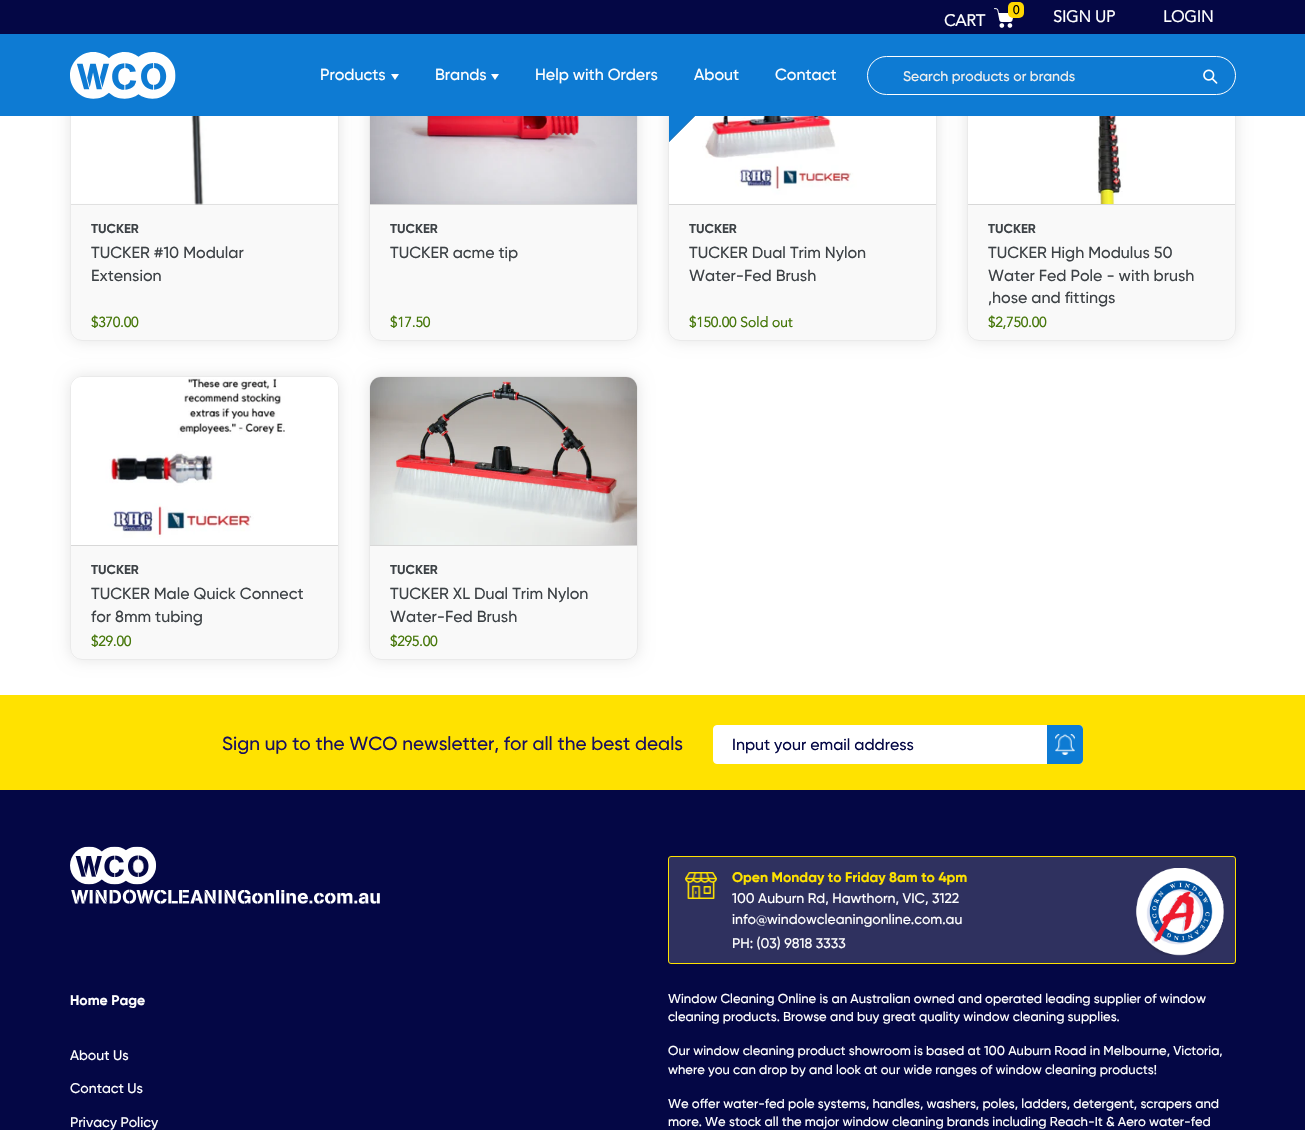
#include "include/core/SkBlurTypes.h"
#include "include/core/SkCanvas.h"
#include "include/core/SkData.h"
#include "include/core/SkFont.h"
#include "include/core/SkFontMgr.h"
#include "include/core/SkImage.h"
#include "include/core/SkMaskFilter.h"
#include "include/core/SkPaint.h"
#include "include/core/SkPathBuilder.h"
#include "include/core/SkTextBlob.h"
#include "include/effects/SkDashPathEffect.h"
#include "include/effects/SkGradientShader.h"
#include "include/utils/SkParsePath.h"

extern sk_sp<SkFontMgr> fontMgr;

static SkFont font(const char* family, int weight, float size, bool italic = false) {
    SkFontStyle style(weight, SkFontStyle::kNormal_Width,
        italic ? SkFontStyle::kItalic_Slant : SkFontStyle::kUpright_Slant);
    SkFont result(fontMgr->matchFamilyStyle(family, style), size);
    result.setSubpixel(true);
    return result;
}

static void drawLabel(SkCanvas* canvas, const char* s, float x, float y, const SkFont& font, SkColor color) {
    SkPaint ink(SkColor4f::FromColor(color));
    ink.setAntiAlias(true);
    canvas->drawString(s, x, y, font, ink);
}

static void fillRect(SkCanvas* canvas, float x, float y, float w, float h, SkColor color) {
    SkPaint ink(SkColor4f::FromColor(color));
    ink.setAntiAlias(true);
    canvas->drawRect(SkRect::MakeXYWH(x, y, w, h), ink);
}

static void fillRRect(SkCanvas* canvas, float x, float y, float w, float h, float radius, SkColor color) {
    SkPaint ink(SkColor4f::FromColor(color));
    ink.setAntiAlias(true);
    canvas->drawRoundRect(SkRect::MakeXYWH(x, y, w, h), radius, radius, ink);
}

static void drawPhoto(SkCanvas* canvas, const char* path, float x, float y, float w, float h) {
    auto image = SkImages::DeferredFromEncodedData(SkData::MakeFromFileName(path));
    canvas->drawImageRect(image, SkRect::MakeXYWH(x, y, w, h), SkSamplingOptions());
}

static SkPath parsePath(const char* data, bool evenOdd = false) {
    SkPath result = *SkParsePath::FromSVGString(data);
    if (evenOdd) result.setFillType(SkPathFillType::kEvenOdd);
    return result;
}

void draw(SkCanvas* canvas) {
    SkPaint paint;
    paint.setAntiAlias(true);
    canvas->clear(0xFFFFFFFF);
    canvas->save();
    canvas->clipPath(parsePath("M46 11H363V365H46ZM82 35H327C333.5 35 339 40.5 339 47V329C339 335.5 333.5 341 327 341H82C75.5 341 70 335.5 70 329V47C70 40.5 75.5 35 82 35Z", true), true);
    paint.setColor(0xFFE5E5E5);
    paint.setMaskFilter(SkMaskFilter::MakeBlur(kNormal_SkBlurStyle, 7.5f));
    canvas->drawRoundRect(SkRect::MakeXYWH(70, 35, 269, 306), 12, 12, paint);
    paint.setMaskFilter(nullptr);
    canvas->restore();
    canvas->save();
    canvas->clipPath(parsePath("M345 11H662V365H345ZM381 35H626C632.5 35 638 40.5 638 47V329C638 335.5 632.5 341 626 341H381C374.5 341 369 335.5 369 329V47C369 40.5 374.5 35 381 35Z", true), true);
    paint.setMaskFilter(SkMaskFilter::MakeBlur(kNormal_SkBlurStyle, 7.5f));
    canvas->drawRoundRect(SkRect::MakeXYWH(369, 35, 269, 306), 12, 12, paint);
    paint.setMaskFilter(nullptr);
    canvas->restore();
    canvas->save();
    canvas->clipPath(parsePath("M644 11H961V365H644ZM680 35H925C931.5 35 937 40.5 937 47V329C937 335.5 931.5 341 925 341H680C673.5 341 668 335.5 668 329V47C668 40.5 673.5 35 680 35Z", true), true);
    paint.setMaskFilter(SkMaskFilter::MakeBlur(kNormal_SkBlurStyle, 7.5f));
    canvas->drawRoundRect(SkRect::MakeXYWH(668, 35, 269, 306), 12, 12, paint);
    paint.setMaskFilter(nullptr);
    canvas->restore();
    canvas->save();
    canvas->clipPath(parsePath("M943 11H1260V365H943ZM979 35H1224C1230.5 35 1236 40.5 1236 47V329C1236 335.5 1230.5 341 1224 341H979C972.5 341 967 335.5 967 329V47C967 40.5 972.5 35 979 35Z", true), true);
    paint.setMaskFilter(SkMaskFilter::MakeBlur(kNormal_SkBlurStyle, 7.5f));
    canvas->drawRoundRect(SkRect::MakeXYWH(967, 35, 269, 306), 12, 12, paint);
    paint.setMaskFilter(nullptr);
    canvas->restore();
    fillRect(canvas, 0, 0, 1305, 34, 0xFF040745);
    drawPhoto(canvas, "assets/img1.png", 994, 8, 19, 20);
    fillRRect(canvas, 1008, 2, 16, 16, 5, 0xFFFFD700);
    SkFont font1 = font("Avenir", 700, 12);
    drawLabel(canvas, "0", 1013, 14, font1, 0xFF000000);
    SkFont font2 = font("Avenir", 700, 16);
    drawLabel(canvas, "CART", 944, 26, font2, 0xFFFFFFFF);
    drawLabel(canvas, "SIGN UP", 1053, 22, font2, 0xFFFFFFFF);
    drawLabel(canvas, "LOGIN", 1163, 22, font2, 0xFFFFFFFF);
    paint.setColor(0x33E0E0E2);
    canvas->drawRoundRect(SkRect::MakeXYWH(70.5f, 35.5f, 268, 305), 11.5f, 11.5f, paint);
    paint.setStroke(true);
    paint.setStrokeWidth(1);
    paint.setColor(0xFFEAEAEA);
    canvas->drawRoundRect(SkRect::MakeXYWH(70.5f, 35.5f, 268, 305), 11.5f, 11.5f, paint);
    paint.setStroke(false);
    paint.setColor(0x33E0E0E2);
    canvas->drawRoundRect(SkRect::MakeXYWH(369.5f, 35.5f, 268, 305), 11.5f, 11.5f, paint);
    paint.setStroke(true);
    paint.setColor(0xFFEAEAEA);
    canvas->drawRoundRect(SkRect::MakeXYWH(369.5f, 35.5f, 268, 305), 11.5f, 11.5f, paint);
    paint.setStroke(false);
    paint.setColor(0x33E0E0E2);
    canvas->drawRoundRect(SkRect::MakeXYWH(668.5f, 35.5f, 268, 305), 11.5f, 11.5f, paint);
    paint.setStroke(true);
    paint.setColor(0xFFEAEAEA);
    canvas->drawRoundRect(SkRect::MakeXYWH(668.5f, 35.5f, 268, 305), 11.5f, 11.5f, paint);
    drawPhoto(canvas, "assets/img6.png", 669, 116, 267, 88);
    paint.setStroke(false);
    paint.setColor(0xFF0E7BD3);
    canvas->drawPath(parsePath("M775 36L669 142V102L736 36Z"), paint);
    paint.setColor(0xFF2472B0);
    canvas->drawPath(parsePath("M775 36L669 142V141L774 36Z"), paint);
    paint.setColor(0x33E0E0E2);
    canvas->drawRoundRect(SkRect::MakeXYWH(967.5f, 35.5f, 268, 305), 11.5f, 11.5f, paint);
    paint.setStroke(true);
    paint.setColor(0xFFEAEAEA);
    canvas->drawRoundRect(SkRect::MakeXYWH(967.5f, 35.5f, 268, 305), 11.5f, 11.5f, paint);
    fillRect(canvas, 0, 34, 1305, 82, 0xFF0E7BD3);
    drawPhoto(canvas, "assets/img2.png", 70, 52, 106, 47);
    SkFont font3 = font("Gilroy", 500, 16);
    drawLabel(canvas, "Products", 320, 80, font3, 0xFFFFFFFF);
    paint.setStroke(false);
    paint.setColor(0xFFFFFFFF);
    canvas->drawPath(parsePath("M391 74H399L395 80Z"), paint);
    drawLabel(canvas, "Brands", 435, 80, font3, 0xFFFFFFFF);
    canvas->drawPath(parsePath("M491 74H499L495 80Z"), paint);
    drawLabel(canvas, "Help with Orders", 535, 80, font3, 0xFFFFFFFF);
    drawLabel(canvas, "About", 694, 80, font3, 0xFFFFFFFF);
    drawLabel(canvas, "Contact", 775, 80, font3, 0xFFFFFFFF);
    paint.setStroke(true);
    canvas->drawRoundRect(SkRect::MakeXYWH(867.5f, 56.5f, 368, 38), 19, 19, paint);
    SkFont font4 = font("Gilroy", 500, 14);
    drawLabel(canvas, "Search products or brands", 903, 81, font4, 0xFFEEEEEE);
    drawPhoto(canvas, "assets/img3.png", 1203, 69, 15, 15);
    fillRect(canvas, 71, 204, 267, 1, 0xFFD8D8D8);
    drawPhoto(canvas, "assets/img4.png", 71, 116, 267, 89);
    SkFont font5 = font("Gilroy", 700, 13);
    drawLabel(canvas, "TUCKER", 91, 233, font5, 0xFF3D4246);
    drawLabel(canvas, "TUCKER #10 Modular", 91, 258, font3, 0xFF3D4246);
    drawLabel(canvas, "Extension", 91, 281, font3, 0xFF3D4246);
    SkFont font6 = font("Avenir", 700, 14);
    drawLabel(canvas, "$370.00", 91, 327, font6, 0xFF47780B);
    fillRect(canvas, 370, 204, 267, 1, 0xFFD8D8D8);
    drawPhoto(canvas, "assets/img5.png", 370, 116, 267, 88);
    drawLabel(canvas, "TUCKER", 390, 233, font5, 0xFF3D4246);
    drawLabel(canvas, "TUCKER acme tip", 390, 258, font3, 0xFF3D4246);
    drawLabel(canvas, "$17.50", 390, 327, font6, 0xFF47780B);
    fillRect(canvas, 669, 204, 267, 1, 0xFFD8D8D8);
    drawLabel(canvas, "TUCKER", 689, 233, font5, 0xFF3D4246);
    drawLabel(canvas, "TUCKER Dual Trim Nylon", 689, 258, font3, 0xFF3D4246);
    drawLabel(canvas, "Water-Fed Brush", 689, 281, font3, 0xFF3D4246);
    drawLabel(canvas, "$150.00", 689, 327, font6, 0xFF47780B);
    drawLabel(canvas, "Sold out", 740, 327, font6, 0xFF47780B);
    fillRect(canvas, 968, 204, 267, 1, 0xFFD8D8D8);
    drawPhoto(canvas, "assets/img7.png", 968, 116, 267, 88);
    drawLabel(canvas, "TUCKER", 988, 233, font5, 0xFF3D4246);
    drawLabel(canvas, "TUCKER High Modulus 50", 988, 258, font3, 0xFF3D4246);
    drawLabel(canvas, "Water Fed Pole - with brush", 988, 281, font3, 0xFF3D4246);
    drawLabel(canvas, ",hose and fittings", 988, 303, font3, 0xFF3D4246);
    drawLabel(canvas, "$2,750.00", 988, 327, font6, 0xFF47780B);
    canvas->save();
    canvas->clipPath(parsePath("M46 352H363V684H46ZM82 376H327C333.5 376 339 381.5 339 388V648C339 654.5 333.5 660 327 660H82C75.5 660 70 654.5 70 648V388C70 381.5 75.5 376 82 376Z", true), true);
    paint.setStroke(false);
    paint.setColor(0xFFE5E5E5);
    paint.setMaskFilter(SkMaskFilter::MakeBlur(kNormal_SkBlurStyle, 7.5f));
    canvas->drawRoundRect(SkRect::MakeXYWH(70, 376, 269, 284), 12, 12, paint);
    paint.setMaskFilter(nullptr);
    canvas->restore();
    paint.setColor(0x33E0E0E2);
    canvas->drawRoundRect(SkRect::MakeXYWH(70.5f, 376.5f, 268, 283), 11.5f, 11.5f, paint);
    paint.setStroke(true);
    paint.setColor(0xFFEAEAEA);
    canvas->drawRoundRect(SkRect::MakeXYWH(70.5f, 376.5f, 268, 283), 11.5f, 11.5f, paint);
    fillRect(canvas, 71, 545, 267, 1, 0xFFD8D8D8);
    drawPhoto(canvas, "assets/img8.png", 71, 377, 267, 168);
    drawLabel(canvas, "TUCKER", 91, 574, font5, 0xFF3D4246);
    drawLabel(canvas, "TUCKER Male Quick Connect", 91, 599, font3, 0xFF3D4246);
    drawLabel(canvas, "for 8mm tubing", 91, 622, font3, 0xFF3D4246);
    drawLabel(canvas, "$29.00", 91, 646, font6, 0xFF47780B);
    canvas->save();
    canvas->clipPath(parsePath("M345 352H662V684H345ZM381 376H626C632.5 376 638 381.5 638 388V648C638 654.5 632.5 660 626 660H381C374.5 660 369 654.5 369 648V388C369 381.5 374.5 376 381 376Z", true), true);
    paint.setStroke(false);
    paint.setColor(0xFFE5E5E5);
    paint.setMaskFilter(SkMaskFilter::MakeBlur(kNormal_SkBlurStyle, 7.5f));
    canvas->drawRoundRect(SkRect::MakeXYWH(369, 376, 269, 284), 12, 12, paint);
    paint.setMaskFilter(nullptr);
    canvas->restore();
    paint.setColor(0x33E0E0E2);
    canvas->drawRoundRect(SkRect::MakeXYWH(369.5f, 376.5f, 268, 283), 11.5f, 11.5f, paint);
    paint.setStroke(true);
    paint.setColor(0xFFEAEAEA);
    canvas->drawRoundRect(SkRect::MakeXYWH(369.5f, 376.5f, 268, 283), 11.5f, 11.5f, paint);
    fillRect(canvas, 370, 545, 267, 1, 0xFFD8D8D8);
    drawPhoto(canvas, "assets/img9.png", 370, 377, 267, 168);
    drawLabel(canvas, "TUCKER", 390, 574, font5, 0xFF3D4246);
    drawLabel(canvas, "TUCKER XL Dual Trim Nylon", 390, 599, font3, 0xFF3D4246);
    drawLabel(canvas, "Water-Fed Brush", 390, 622, font3, 0xFF3D4246);
    drawLabel(canvas, "$295.00", 390, 646, font6, 0xFF47780B);
    fillRect(canvas, 0, 790, 1305, 340, 0xFF040745);
    fillRect(canvas, 0, 695, 1305, 95, 0xFFFFE200);
    SkFont font7 = font("Gilroy", 500, 19);
    drawLabel(canvas, "Sign up to the WCO newsletter, for all the best deals", 222, 750, font7, 0xFF19105F);
    paint.setStroke(false);
    paint.setColor(0xFFFFFFFF);
    canvas->drawRoundRect(SkRect::MakeXYWH(713.5f, 725.5f, 369, 38), 3.5f, 3.5f, paint);
    paint.setStroke(true);
    canvas->drawRoundRect(SkRect::MakeXYWH(713.5f, 725.5f, 369, 38), 3.5f, 3.5f, paint);
    drawLabel(canvas, "Input your email address", 732, 750, font3, 0xFF040745);
    paint.setStroke(false);
    paint.setColor(0xFF0E7BD3);
    canvas->drawPath(parsePath("M1047 725H1079C1081 725 1083 727 1083 729V760C1083 762 1081 764 1079 764H1047Z"), paint);
    drawPhoto(canvas, "assets/img10.png", 1055, 734, 20, 21);
    drawPhoto(canvas, "assets/img11.png", 70, 846, 310, 58);
    SkFont font8 = font("Gilroy", 700, 14);
    drawLabel(canvas, "Home Page", 70, 1005, font8, 0xFFFFFFFF);
    drawLabel(canvas, "About Us", 70, 1060, font4, 0xFFFFFFFF);
    drawLabel(canvas, "Contact Us", 70, 1093, font4, 0xFFFFFFFF);
    drawLabel(canvas, "Privacy Policy", 70, 1127, font4, 0xFFFFFFFF);
    paint.setColor(0xFF2F315F);
    canvas->drawRoundRect(SkRect::MakeXYWH(668.5f, 856.5f, 567, 107), 2.5f, 2.5f, paint);
    paint.setStroke(true);
    paint.setColor(0xFFFFE200);
    canvas->drawRoundRect(SkRect::MakeXYWH(668.5f, 856.5f, 567, 107), 2.5f, 2.5f, paint);
    drawPhoto(canvas, "assets/img12.png", 685, 872, 32, 27);
    drawLabel(canvas, "Open Monday to Friday 8am to 4pm", 732, 882, font8, 0xFFFFE200);
    drawPhoto(canvas, "assets/img13.png", 1136, 868, 88, 88);
    drawLabel(canvas, "100 Auburn Rd, Hawthorn, VIC, 3122", 732, 903, font4, 0xFFFFFFFF);
    drawLabel(canvas, "info@windowcleaningonline.com.au", 732, 924, font4, 0xFFFFFFFF);
    drawLabel(canvas, "PH: (03) 9818 3333", 732, 948, font4, 0xFFFFFFFF);
    SkFont font9 = font("Gilroy", 500, 13);
    drawLabel(canvas, "Window Cleaning Online is an Australian owned and operated leading supplier of window", 668, 1003, font9, 0xFFFFFFFF);
    drawLabel(canvas, "cleaning products. Browse and buy great quality window cleaning supplies.", 668, 1021, font9, 0xFFFFFFFF);
    drawLabel(canvas, "Our window cleaning product showroom is based at 100 Auburn Road in Melbourne, Victoria,", 668, 1055, font9, 0xFFFFFFFF);
    drawLabel(canvas, "where you can drop by and look at our wide ranges of window cleaning products!", 668, 1074, font9, 0xFFFFFFFF);
    drawLabel(canvas, "We offer water-fed pole systems, handles, washers, poles, ladders, detergent, scrapers and", 668, 1108, font9, 0xFFFFFFFF);
    drawLabel(canvas, "more. We stock all the major window cleaning brands including Reach-It & Aero water-fed", 668, 1126, font9, 0xFFFFFFFF);
}
